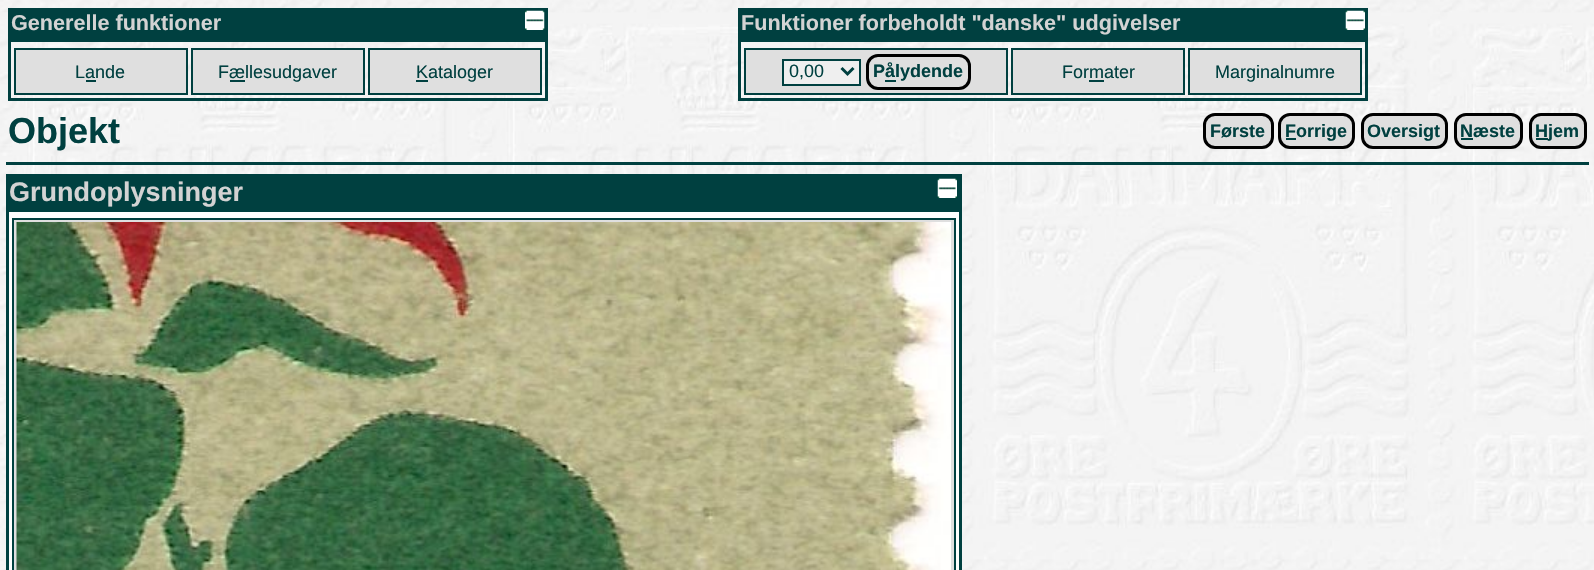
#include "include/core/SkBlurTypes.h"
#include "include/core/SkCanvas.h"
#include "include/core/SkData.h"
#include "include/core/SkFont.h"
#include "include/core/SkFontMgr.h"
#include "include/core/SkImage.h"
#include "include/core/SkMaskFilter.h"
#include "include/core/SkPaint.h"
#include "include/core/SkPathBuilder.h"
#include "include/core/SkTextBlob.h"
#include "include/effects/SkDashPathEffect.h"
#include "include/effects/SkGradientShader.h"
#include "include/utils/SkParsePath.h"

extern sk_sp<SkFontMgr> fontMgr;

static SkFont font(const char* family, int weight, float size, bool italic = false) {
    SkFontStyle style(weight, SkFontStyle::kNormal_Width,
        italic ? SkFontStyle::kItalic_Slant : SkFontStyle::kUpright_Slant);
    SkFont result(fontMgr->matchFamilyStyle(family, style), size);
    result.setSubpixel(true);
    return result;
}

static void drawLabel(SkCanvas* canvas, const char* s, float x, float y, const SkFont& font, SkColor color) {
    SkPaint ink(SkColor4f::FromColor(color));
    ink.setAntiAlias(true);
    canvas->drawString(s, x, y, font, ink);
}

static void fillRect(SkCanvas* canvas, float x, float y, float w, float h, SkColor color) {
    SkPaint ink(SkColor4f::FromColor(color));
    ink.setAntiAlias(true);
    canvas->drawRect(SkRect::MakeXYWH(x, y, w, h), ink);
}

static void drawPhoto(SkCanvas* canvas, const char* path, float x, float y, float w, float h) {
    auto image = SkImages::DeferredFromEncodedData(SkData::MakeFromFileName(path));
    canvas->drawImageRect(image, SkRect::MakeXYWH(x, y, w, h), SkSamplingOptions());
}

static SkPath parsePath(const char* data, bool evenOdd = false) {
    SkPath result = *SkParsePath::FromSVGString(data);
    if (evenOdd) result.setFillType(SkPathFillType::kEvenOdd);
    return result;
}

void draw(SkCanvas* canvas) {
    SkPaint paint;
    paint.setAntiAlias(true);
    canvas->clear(0xFFFFFFFF);
    drawPhoto(canvas, "assets/img1.png", 0, 0, 1594, 570);
    paint.setStroke(true);
    paint.setStrokeWidth(3);
    paint.setColor(0xFF004040);
    canvas->drawRect(SkRect::MakeXYWH(9.5f, 9.5f, 537, 90), paint);
    fillRect(canvas, 11, 11, 534, 31, 0xFF004040);
    SkFont font1 = font("Liberation Sans", 700, 21.6f);
    drawLabel(canvas, "Generelle funktioner", 11, 30, font1, 0xFFD3D3D3);
    drawPhoto(canvas, "assets/img2.png", 525, 10, 20, 20);
    paint.setStroke(false);
    paint.setColor(0xFFDFDFDF);
    canvas->drawRect(SkRect::MakeXYWH(15, 49, 172, 45), paint);
    paint.setStroke(true);
    paint.setStrokeWidth(2);
    paint.setColor(0xFF004040);
    canvas->drawRect(SkRect::MakeXYWH(15, 49, 172, 45), paint);
    SkFont font2 = font("Liberation Sans", 400, 18);
    drawLabel(canvas, "Lande", 75, 78, font2, 0xFF004040);
    fillRect(canvas, 86, 80, 10, 2, 0xFF004040);
    paint.setStroke(false);
    paint.setColor(0xFFDFDFDF);
    canvas->drawRect(SkRect::MakeXYWH(192, 49, 172, 45), paint);
    paint.setStroke(true);
    paint.setColor(0xFF004040);
    canvas->drawRect(SkRect::MakeXYWH(192, 49, 172, 45), paint);
    drawLabel(canvas, "Fællesudgaver", 218, 78, font2, 0xFF004040);
    fillRect(canvas, 230, 80, 15, 2, 0xFF004040);
    paint.setStroke(false);
    paint.setColor(0xFFDFDFDF);
    canvas->drawRect(SkRect::MakeXYWH(369, 49, 172, 45), paint);
    paint.setStroke(true);
    paint.setColor(0xFF004040);
    canvas->drawRect(SkRect::MakeXYWH(369, 49, 172, 45), paint);
    fillRect(canvas, 416, 80, 12, 2, 0xFF004040);
    drawLabel(canvas, "Kataloger", 416, 78, font2, 0xFF004040);
    paint.setStrokeWidth(3);
    canvas->drawRect(SkRect::MakeXYWH(739.5f, 9.5f, 627, 90), paint);
    fillRect(canvas, 741, 11, 624, 31, 0xFF004040);
    drawLabel(canvas, "Funktioner forbeholdt \"danske\" udgivelser", 741, 30, font1, 0xFFD3D3D3);
    drawPhoto(canvas, "assets/img3.png", 1345, 10, 20, 20);
    paint.setStroke(false);
    paint.setColor(0xFFDFDFDF);
    canvas->drawRect(SkRect::MakeXYWH(745, 49, 262, 45), paint);
    paint.setStroke(true);
    paint.setStrokeWidth(2);
    paint.setColor(0xFF004040);
    canvas->drawRect(SkRect::MakeXYWH(745, 49, 262, 45), paint);
    paint.setStroke(false);
    paint.setColor(0xFFEFEFEF);
    canvas->drawRect(SkRect::MakeXYWH(783, 60, 77, 25), paint);
    paint.setStroke(true);
    paint.setColor(0xFF004040);
    canvas->drawRect(SkRect::MakeXYWH(783, 60, 77, 25), paint);
    paint.setStrokeWidth(3);
    canvas->drawPath(parsePath("M841.5 68L847.5 74L853.5 68"), paint);
    drawLabel(canvas, "0,00", 789, 77, font2, 0xFF004040);
    paint.setColor(0xFF000000);
    canvas->drawRoundRect(SkRect::MakeXYWH(867.5f, 55.5f, 102, 33), 10.5f, 10.5f, paint);
    SkFont font3 = font("Liberation Sans", 700, 18);
    drawLabel(canvas, "Pålydende", 873, 77, font3, 0xFF004040);
    fillRect(canvas, 885, 80, 11, 2, 0xFF004040);
    paint.setStroke(false);
    paint.setColor(0xFFDFDFDF);
    canvas->drawRect(SkRect::MakeXYWH(1012, 49, 172, 45), paint);
    paint.setStroke(true);
    paint.setStrokeWidth(2);
    paint.setColor(0xFF004040);
    canvas->drawRect(SkRect::MakeXYWH(1012, 49, 172, 45), paint);
    drawLabel(canvas, "Formater", 1062, 78, font2, 0xFF004040);
    fillRect(canvas, 1089, 80, 15, 2, 0xFF004040);
    paint.setStroke(false);
    paint.setColor(0xFFDFDFDF);
    canvas->drawRect(SkRect::MakeXYWH(1189, 49, 172, 45), paint);
    paint.setStroke(true);
    paint.setColor(0xFF004040);
    canvas->drawRect(SkRect::MakeXYWH(1189, 49, 172, 45), paint);
    drawLabel(canvas, "Marginalnumre", 1215, 78, font2, 0xFF004040);
    SkFont font4 = font("Liberation Sans", 700, 36);
    drawLabel(canvas, "Objekt", 8, 143, font4, 0xFF004040);
    paint.setStroke(false);
    paint.setColor(0xFFDFDFDF);
    canvas->drawRoundRect(SkRect::MakeXYWH(1204.5f, 114.5f, 68, 33), 10.5f, 10.5f, paint);
    paint.setStroke(true);
    paint.setStrokeWidth(3);
    paint.setColor(0xFF000000);
    canvas->drawRoundRect(SkRect::MakeXYWH(1204.5f, 114.5f, 68, 33), 10.5f, 10.5f, paint);
    drawLabel(canvas, "Første", 1210, 137, font3, 0xFF004040);
    paint.setStroke(false);
    paint.setColor(0xFFDFDFDF);
    canvas->drawRoundRect(SkRect::MakeXYWH(1279.5f, 114.5f, 74, 33), 10.5f, 10.5f, paint);
    paint.setStroke(true);
    paint.setColor(0xFF000000);
    canvas->drawRoundRect(SkRect::MakeXYWH(1279.5f, 114.5f, 74, 33), 10.5f, 10.5f, paint);
    fillRect(canvas, 1286, 138, 10, 2, 0xFF004040);
    drawLabel(canvas, "Forrige", 1285, 137, font3, 0xFF004040);
    paint.setStroke(false);
    paint.setColor(0xFFDFDFDF);
    canvas->drawRoundRect(SkRect::MakeXYWH(1362.5f, 114.5f, 84, 33), 10.5f, 10.5f, paint);
    paint.setStroke(true);
    paint.setColor(0xFF000000);
    canvas->drawRoundRect(SkRect::MakeXYWH(1362.5f, 114.5f, 84, 33), 10.5f, 10.5f, paint);
    drawLabel(canvas, "Oversigt", 1367, 137, font3, 0xFF004040);
    paint.setStroke(false);
    paint.setColor(0xFFDFDFDF);
    canvas->drawRoundRect(SkRect::MakeXYWH(1455.5f, 114.5f, 66, 33), 10.5f, 10.5f, paint);
    paint.setStroke(true);
    paint.setColor(0xFF000000);
    canvas->drawRoundRect(SkRect::MakeXYWH(1455.5f, 114.5f, 66, 33), 10.5f, 10.5f, paint);
    drawLabel(canvas, "Næste", 1460, 137, font3, 0xFF004040);
    fillRect(canvas, 1461, 138, 12, 2, 0xFF004040);
    paint.setStroke(false);
    paint.setColor(0xFFDFDFDF);
    canvas->drawRoundRect(SkRect::MakeXYWH(1530.5f, 114.5f, 55, 33), 10.5f, 10.5f, paint);
    paint.setStroke(true);
    paint.setColor(0xFF000000);
    canvas->drawRoundRect(SkRect::MakeXYWH(1530.5f, 114.5f, 55, 33), 10.5f, 10.5f, paint);
    fillRect(canvas, 1536, 138, 12, 2, 0xFF004040);
    drawLabel(canvas, "Hjem", 1535, 137, font3, 0xFF004040);
    fillRect(canvas, 6, 162, 1583, 3, 0xFF004040);
    fillRect(canvas, 9, 212, 950, 358, 0xFFFFFFFF);
    paint.setColor(0xFF004040);
    canvas->drawRect(SkRect::MakeXYWH(7.5f, 175.5f, 953, 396), paint);
    fillRect(canvas, 9, 177, 950, 35, 0xFF004040);
    SkFont font5 = font("Liberation Sans", 700, 27);
    drawLabel(canvas, "Grundoplysninger", 9, 201, font5, 0xFFD3D3D3);
    drawPhoto(canvas, "assets/img4.png", 937, 178, 20, 20);
    paint.setStroke(false);
    paint.setColor(0xFFDFDFDF);
    canvas->drawRect(SkRect::MakeXYWH(13, 219, 942, 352), paint);
    paint.setStroke(true);
    paint.setStrokeWidth(2);
    paint.setColor(0xFF004040);
    canvas->drawRect(SkRect::MakeXYWH(13, 219, 942, 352), paint);
    drawPhoto(canvas, "assets/img5.png", 16, 222, 935, 348);
}
